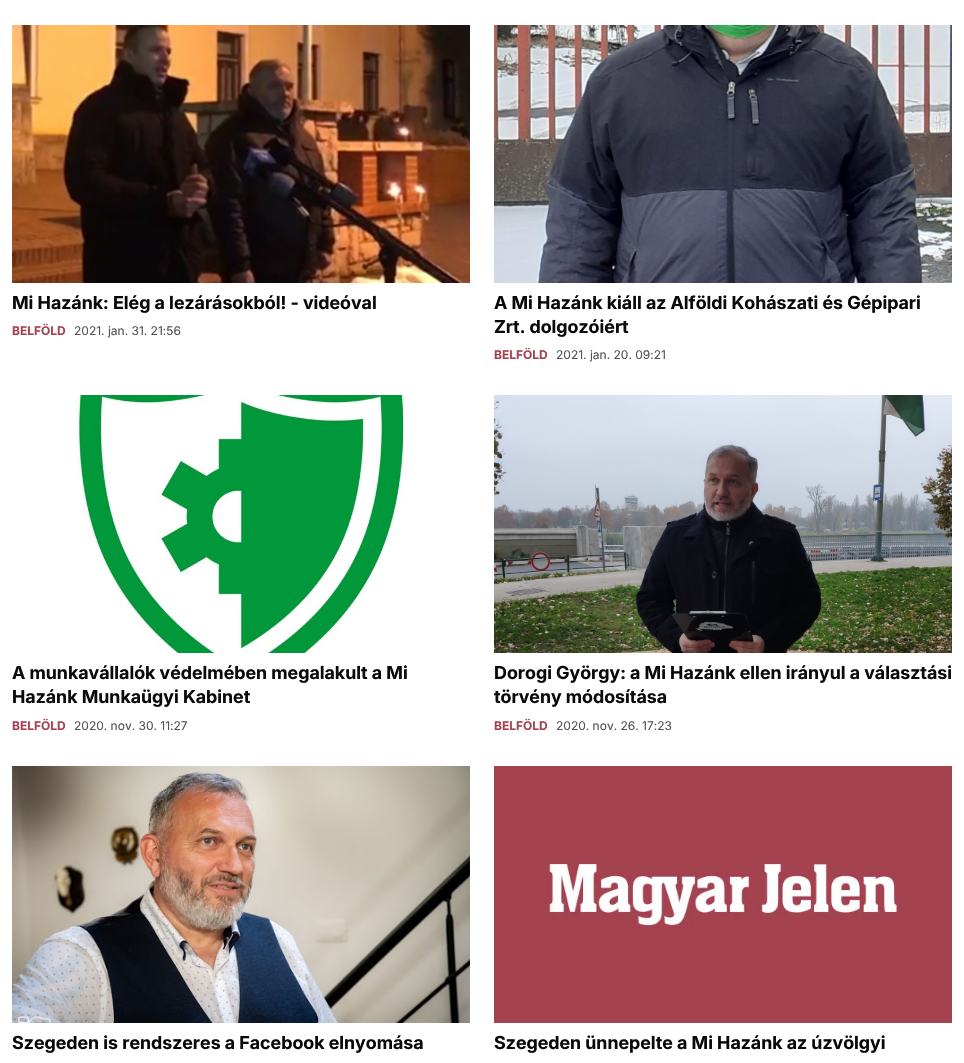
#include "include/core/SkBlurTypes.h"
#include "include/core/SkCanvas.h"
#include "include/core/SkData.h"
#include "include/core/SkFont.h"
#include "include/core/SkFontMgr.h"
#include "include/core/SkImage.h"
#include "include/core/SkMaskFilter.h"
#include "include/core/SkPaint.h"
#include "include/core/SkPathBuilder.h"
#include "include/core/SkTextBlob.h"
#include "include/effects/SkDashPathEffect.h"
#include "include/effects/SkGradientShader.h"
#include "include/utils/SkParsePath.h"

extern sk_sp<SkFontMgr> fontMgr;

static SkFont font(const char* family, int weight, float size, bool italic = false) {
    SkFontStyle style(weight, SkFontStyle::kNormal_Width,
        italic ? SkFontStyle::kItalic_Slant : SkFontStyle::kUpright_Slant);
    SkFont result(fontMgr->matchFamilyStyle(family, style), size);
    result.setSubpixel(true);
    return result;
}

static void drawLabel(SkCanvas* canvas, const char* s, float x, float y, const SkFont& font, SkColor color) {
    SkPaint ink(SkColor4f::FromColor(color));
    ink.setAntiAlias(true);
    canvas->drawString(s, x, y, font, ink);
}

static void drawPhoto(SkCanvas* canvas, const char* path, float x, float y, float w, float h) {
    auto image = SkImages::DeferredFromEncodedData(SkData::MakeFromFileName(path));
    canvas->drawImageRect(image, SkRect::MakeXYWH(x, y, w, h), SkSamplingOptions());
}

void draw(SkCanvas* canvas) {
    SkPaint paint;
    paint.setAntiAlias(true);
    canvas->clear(0xFFFFFFFF);
    drawPhoto(canvas, "assets/img1.png", 12, 25, 458, 258);
    SkFont font1 = font("Inter", 700, 18);
    drawLabel(canvas, "Mi Hazánk: Elég a lezárásokból! - videóval", 12, 309, font1, 0xFF0A0A0A);
    SkFont font2 = font("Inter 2", 700, 12);
    drawLabel(canvas, "BELFÖLD", 12, 335, font2, 0xFFA54251);
    SkFont font3 = font("Inter", 400, 12);
    drawLabel(canvas, "2021. jan. 31. 21:56", 74, 335, font3, 0xFF525252);
    drawPhoto(canvas, "assets/img2.png", 494, 25, 458, 258);
    drawLabel(canvas, "A Mi Hazánk kiáll az Alföldi Kohászati és Gépipari", 494, 309, font1, 0xFF0A0A0A);
    drawLabel(canvas, "Zrt. dolgozóiért", 494, 333, font1, 0xFF0A0A0A);
    drawLabel(canvas, "BELFÖLD", 494, 359, font2, 0xFFA54251);
    drawLabel(canvas, "2021. jan. 20. 09:21", 556, 359, font3, 0xFF525252);
    drawPhoto(canvas, "assets/img3.png", 76, 395, 333, 258);
    drawLabel(canvas, "A munkavállalók védelmében megalakult a Mi", 12, 679, font1, 0xFF0A0A0A);
    drawLabel(canvas, "Hazánk Munkaügyi Kabinet", 12, 703, font1, 0xFF0A0A0A);
    drawLabel(canvas, "BELFÖLD", 12, 730, font2, 0xFFA54251);
    drawLabel(canvas, "2020. nov. 30. 11:27", 74, 730, font3, 0xFF525252);
    drawPhoto(canvas, "assets/img4.png", 494, 395, 458, 258);
    drawLabel(canvas, "Dorogi György: a Mi Hazánk ellen irányul a választási", 494, 679, font1, 0xFF0A0A0A);
    drawLabel(canvas, "törvény módosítása", 494, 703, font1, 0xFF0A0A0A);
    drawLabel(canvas, "BELFÖLD", 494, 730, font2, 0xFFA54251);
    drawLabel(canvas, "2020. nov. 26. 17:23", 556, 730, font3, 0xFF525252);
    drawPhoto(canvas, "assets/img5.png", 12, 766, 458, 257);
    drawLabel(canvas, "Szegeden is rendszeres a Facebook elnyomása", 12, 1049, font1, 0xFF0A0A0A);
    drawPhoto(canvas, "assets/img6.png", 494, 766, 458, 257);
    drawLabel(canvas, "Szegeden ünnepelte a Mi Hazánk az úzvölgyi", 494, 1049, font1, 0xFF0A0A0A);
}
